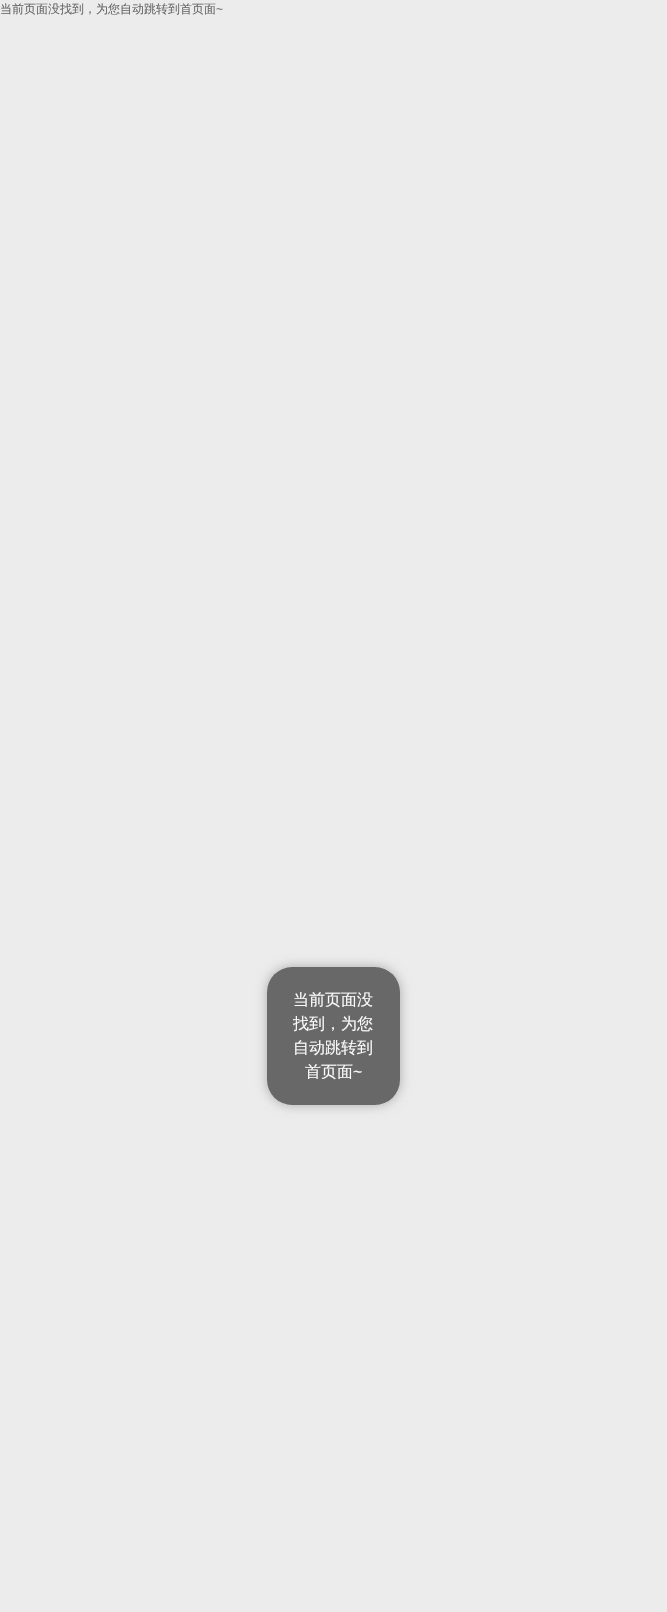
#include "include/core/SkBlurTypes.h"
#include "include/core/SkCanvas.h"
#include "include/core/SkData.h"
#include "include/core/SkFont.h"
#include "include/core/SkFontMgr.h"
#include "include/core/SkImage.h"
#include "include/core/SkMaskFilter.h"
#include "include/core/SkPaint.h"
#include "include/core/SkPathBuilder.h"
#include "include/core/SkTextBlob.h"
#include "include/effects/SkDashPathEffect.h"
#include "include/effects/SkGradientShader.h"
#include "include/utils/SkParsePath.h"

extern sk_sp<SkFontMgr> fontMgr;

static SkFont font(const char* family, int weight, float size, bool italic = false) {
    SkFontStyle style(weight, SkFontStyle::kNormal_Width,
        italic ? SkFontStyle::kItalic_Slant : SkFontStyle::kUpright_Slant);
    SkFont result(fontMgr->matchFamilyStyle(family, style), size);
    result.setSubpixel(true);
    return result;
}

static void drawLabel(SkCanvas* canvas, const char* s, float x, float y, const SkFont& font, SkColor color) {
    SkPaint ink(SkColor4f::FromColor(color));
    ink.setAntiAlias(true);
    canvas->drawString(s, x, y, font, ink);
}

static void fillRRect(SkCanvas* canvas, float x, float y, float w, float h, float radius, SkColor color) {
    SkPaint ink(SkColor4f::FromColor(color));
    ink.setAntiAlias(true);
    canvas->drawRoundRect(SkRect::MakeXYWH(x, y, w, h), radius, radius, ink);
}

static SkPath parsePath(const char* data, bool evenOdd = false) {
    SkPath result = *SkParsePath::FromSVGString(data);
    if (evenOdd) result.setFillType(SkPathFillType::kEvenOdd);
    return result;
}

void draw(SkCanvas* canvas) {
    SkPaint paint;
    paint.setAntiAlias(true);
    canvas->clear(0xFFECECEC);
    SkFont font1 = font("WenQuanYi Zen Hei", 500, 12);
    drawLabel(canvas, "当前页面没找到，为您自动跳转到首页面", 0, 13, font1, 0xFF666666);
    SkFont font2 = font("Liberation Sans", 400, 12);
    drawLabel(canvas, "~", 216, 13, font2, 0xFF666666);
    canvas->save();
    canvas->clipPath(parsePath("M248 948H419V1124H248ZM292 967H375C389 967 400 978 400 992V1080C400 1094 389 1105 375 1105H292C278 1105 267 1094 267 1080V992C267 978 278 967 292 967Z", true), true);
    paint.setColor(0xFFAAAAAA);
    paint.setMaskFilter(SkMaskFilter::MakeBlur(kNormal_SkBlurStyle, 6));
    canvas->drawRoundRect(SkRect::MakeXYWH(267, 967, 133, 138), 25, 25, paint);
    paint.setMaskFilter(nullptr);
    canvas->restore();
    fillRRect(canvas, 267, 967, 133, 138, 25, 0xB32F2F2F);
    SkFont font3 = font("WenQuanYi Zen Hei", 500, 16);
    drawLabel(canvas, "当前页面没", 293, 1005, font3, 0xFFFBFBFB);
    drawLabel(canvas, "找到，为您", 293, 1029, font3, 0xFFFBFBFB);
    drawLabel(canvas, "自动跳转到", 293, 1053, font3, 0xFFFBFBFB);
    drawLabel(canvas, "首页面", 305, 1077, font3, 0xFFFBFBFB);
    SkFont font4 = font("Liberation Sans", 400, 16);
    drawLabel(canvas, "~", 353, 1077, font4, 0xFFFBFBFB);
}
